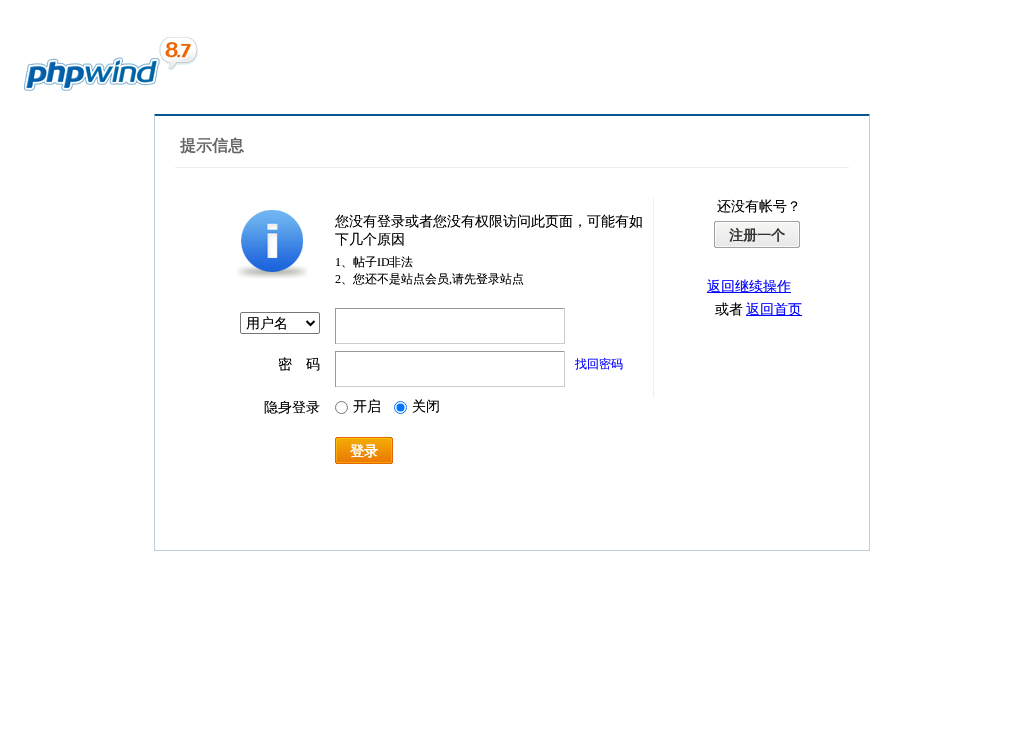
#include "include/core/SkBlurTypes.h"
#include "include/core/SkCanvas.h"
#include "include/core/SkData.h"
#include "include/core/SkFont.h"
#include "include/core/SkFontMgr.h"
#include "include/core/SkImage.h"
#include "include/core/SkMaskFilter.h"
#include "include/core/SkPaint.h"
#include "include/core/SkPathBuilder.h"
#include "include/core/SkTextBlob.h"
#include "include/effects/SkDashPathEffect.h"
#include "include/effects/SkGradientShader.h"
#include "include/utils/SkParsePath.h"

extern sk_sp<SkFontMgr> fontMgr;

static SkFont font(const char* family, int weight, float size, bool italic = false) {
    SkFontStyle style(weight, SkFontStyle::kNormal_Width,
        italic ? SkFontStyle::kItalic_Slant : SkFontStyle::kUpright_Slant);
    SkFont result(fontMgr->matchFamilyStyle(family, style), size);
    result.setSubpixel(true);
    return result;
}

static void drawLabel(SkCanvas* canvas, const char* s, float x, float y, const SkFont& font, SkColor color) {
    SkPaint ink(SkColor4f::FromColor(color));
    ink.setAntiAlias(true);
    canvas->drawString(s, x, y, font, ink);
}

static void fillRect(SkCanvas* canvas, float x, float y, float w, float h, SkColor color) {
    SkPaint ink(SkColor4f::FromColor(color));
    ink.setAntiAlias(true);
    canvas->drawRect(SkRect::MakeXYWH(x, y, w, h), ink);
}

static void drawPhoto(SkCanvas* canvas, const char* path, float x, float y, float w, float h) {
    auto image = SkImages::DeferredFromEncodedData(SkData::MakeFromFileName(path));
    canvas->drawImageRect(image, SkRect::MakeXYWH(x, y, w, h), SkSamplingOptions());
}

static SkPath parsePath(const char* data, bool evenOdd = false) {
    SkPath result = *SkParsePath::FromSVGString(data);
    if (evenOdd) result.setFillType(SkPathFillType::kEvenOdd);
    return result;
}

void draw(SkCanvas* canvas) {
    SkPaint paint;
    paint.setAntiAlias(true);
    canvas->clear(0xFFFFFFFF);
    drawPhoto(canvas, "assets/img1.png", 24, 37, 174, 54);
    paint.setColor(0xFF065792);
    canvas->drawPath(parsePath("M154 114H870L869 116H155Z"), paint);
    paint.setColor(0xFFBDCFDD);
    canvas->drawPath(parsePath("M870 114V551L869 550V116Z"), paint);
    fillRect(canvas, 154, 550, 716, 1, 0xFFBDCFDD);
    canvas->drawPath(parsePath("M154 551V114L155 116V550Z"), paint);
    fillRect(canvas, 175, 167, 674, 1, 0xFFEDEDED);
    SkFont font1 = font("WenQuanYi Zen Hei", 700, 16);
    drawLabel(canvas, "提示信息", 180, 151, font1, 0xFF666666);
    drawPhoto(canvas, "assets/img2.png", 236, 210, 72, 69);
    SkFont font2 = font("WenQuanYi Zen Hei", 500, 14);
    drawLabel(canvas, "您没有登录或者您没有权限访问此页面，可能有如", 335, 226, font2, 0xFF000000);
    drawLabel(canvas, "下几个原因", 335, 244, font2, 0xFF000000);
    SkFont font3 = font("Liberation Serif", 400, 12);
    drawLabel(canvas, "1", 335, 266, font3, 0xFF000000);
    SkFont font4 = font("WenQuanYi Zen Hei", 500, 12);
    drawLabel(canvas, "、帖子", 341, 266, font4, 0xFF000000);
    drawLabel(canvas, "ID", 377, 266, font3, 0xFF000000);
    drawLabel(canvas, "非法", 389, 266, font4, 0xFF000000);
    drawLabel(canvas, "2", 335, 283, font3, 0xFF000000);
    drawLabel(canvas, "、您还不是站点会员", 341, 283, font4, 0xFF000000);
    drawLabel(canvas, ",", 449, 283, font3, 0xFF000000);
    drawLabel(canvas, "请先登录站点", 452, 283, font4, 0xFF000000);
    paint.setStroke(true);
    paint.setStrokeWidth(1);
    paint.setColor(0xFF767676);
    canvas->drawRoundRect(SkRect::MakeXYWH(240.5f, 312.5f, 79, 21), 1.5f, 1.5f, paint);
    paint.setStrokeWidth(2);
    paint.setColor(0xFF000000);
    canvas->drawPath(parsePath("M306.5 321L310.5 325L314.5 321"), paint);
    drawLabel(canvas, "用户名", 246, 328, font2, 0xFF000000);
    fillRect(canvas, 335, 308, 230, 1, 0xFF999999);
    fillRect(canvas, 564, 308, 1, 36, 0xFFCCCCCC);
    fillRect(canvas, 335, 343, 230, 1, 0xFFCCCCCC);
    fillRect(canvas, 335, 308, 1, 36, 0xFF999999);
    drawLabel(canvas, "密　码", 278, 369, font2, 0xFF000000);
    fillRect(canvas, 335, 351, 230, 1, 0xFF999999);
    fillRect(canvas, 564, 351, 1, 36, 0xFFCCCCCC);
    fillRect(canvas, 335, 386, 230, 1, 0xFFCCCCCC);
    fillRect(canvas, 335, 351, 1, 36, 0xFF999999);
    drawLabel(canvas, "找回密码", 575, 368, font4, 0xFF0000FF);
    drawLabel(canvas, "隐身登录", 264, 412, font2, 0xFF000000);
    paint.setStrokeWidth(1);
    paint.setColor(0xFF767676);
    canvas->drawCircle(341.5f, 407.5f, 6, paint);
    drawLabel(canvas, "开启", 353, 411, font2, 0xFF000000);
    paint.setColor(0xFF0075FF);
    canvas->drawCircle(400.5f, 407.5f, 6, paint);
    paint.setStroke(false);
    canvas->drawCircle(400.5f, 407.5f, 4, paint);
    drawLabel(canvas, "关闭", 412, 411, font2, 0xFF000000);
    drawPhoto(canvas, "assets/img3.png", 391, 437, 2, 27);
    drawPhoto(canvas, "assets/img4.png", 335, 437, 56, 27);
    SkFont font5 = font("WenQuanYi Zen Hei", 700, 14);
    drawLabel(canvas, "登录", 350, 456, font5, 0xFFFFFFFF);
    paint.setStroke(true);
    paint.setColor(0xFFDDDDDD);
    paint.setPathEffect(SkDashPathEffect::Make({{1, 1}}, 0));
    canvas->drawPath(parsePath("M653.5 198V398"), paint);
    paint.setPathEffect(nullptr);
    drawLabel(canvas, "还没有帐号？", 717, 211, font2, 0xFF000000);
    drawPhoto(canvas, "assets/img5.png", 798, 221, 2, 27);
    drawPhoto(canvas, "assets/img6.png", 714, 221, 84, 27);
    drawLabel(canvas, "注册一个", 729, 240, font5, 0xFF333333);
    fillRect(canvas, 707, 292, 84, 1, 0xFF0000FF);
    drawLabel(canvas, "返回继续操作", 707, 291, font2, 0xFF0000FF);
    drawLabel(canvas, "或者", 715, 314, font2, 0xFF000000);
    fillRect(canvas, 746, 315, 56, 1, 0xFF0000FF);
    drawLabel(canvas, "返回首页", 746, 314, font2, 0xFF0000FF);
}
